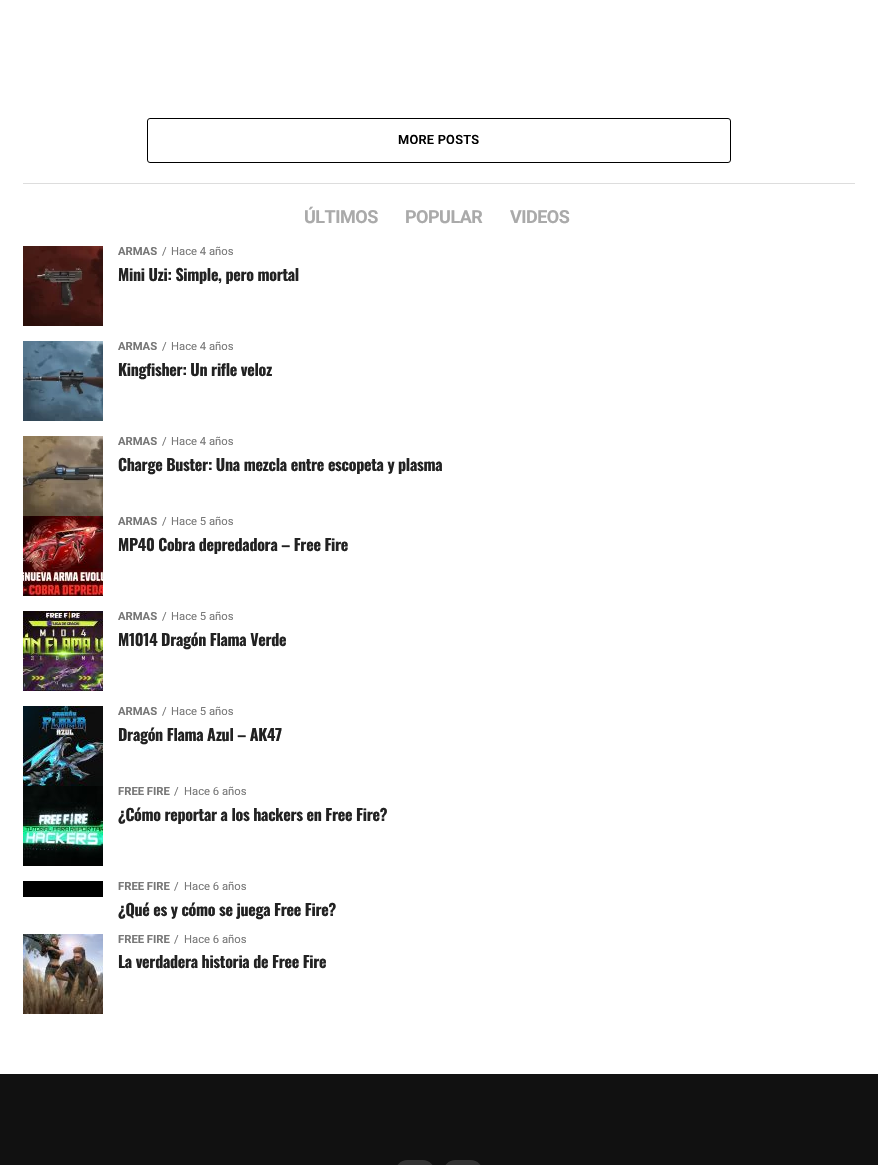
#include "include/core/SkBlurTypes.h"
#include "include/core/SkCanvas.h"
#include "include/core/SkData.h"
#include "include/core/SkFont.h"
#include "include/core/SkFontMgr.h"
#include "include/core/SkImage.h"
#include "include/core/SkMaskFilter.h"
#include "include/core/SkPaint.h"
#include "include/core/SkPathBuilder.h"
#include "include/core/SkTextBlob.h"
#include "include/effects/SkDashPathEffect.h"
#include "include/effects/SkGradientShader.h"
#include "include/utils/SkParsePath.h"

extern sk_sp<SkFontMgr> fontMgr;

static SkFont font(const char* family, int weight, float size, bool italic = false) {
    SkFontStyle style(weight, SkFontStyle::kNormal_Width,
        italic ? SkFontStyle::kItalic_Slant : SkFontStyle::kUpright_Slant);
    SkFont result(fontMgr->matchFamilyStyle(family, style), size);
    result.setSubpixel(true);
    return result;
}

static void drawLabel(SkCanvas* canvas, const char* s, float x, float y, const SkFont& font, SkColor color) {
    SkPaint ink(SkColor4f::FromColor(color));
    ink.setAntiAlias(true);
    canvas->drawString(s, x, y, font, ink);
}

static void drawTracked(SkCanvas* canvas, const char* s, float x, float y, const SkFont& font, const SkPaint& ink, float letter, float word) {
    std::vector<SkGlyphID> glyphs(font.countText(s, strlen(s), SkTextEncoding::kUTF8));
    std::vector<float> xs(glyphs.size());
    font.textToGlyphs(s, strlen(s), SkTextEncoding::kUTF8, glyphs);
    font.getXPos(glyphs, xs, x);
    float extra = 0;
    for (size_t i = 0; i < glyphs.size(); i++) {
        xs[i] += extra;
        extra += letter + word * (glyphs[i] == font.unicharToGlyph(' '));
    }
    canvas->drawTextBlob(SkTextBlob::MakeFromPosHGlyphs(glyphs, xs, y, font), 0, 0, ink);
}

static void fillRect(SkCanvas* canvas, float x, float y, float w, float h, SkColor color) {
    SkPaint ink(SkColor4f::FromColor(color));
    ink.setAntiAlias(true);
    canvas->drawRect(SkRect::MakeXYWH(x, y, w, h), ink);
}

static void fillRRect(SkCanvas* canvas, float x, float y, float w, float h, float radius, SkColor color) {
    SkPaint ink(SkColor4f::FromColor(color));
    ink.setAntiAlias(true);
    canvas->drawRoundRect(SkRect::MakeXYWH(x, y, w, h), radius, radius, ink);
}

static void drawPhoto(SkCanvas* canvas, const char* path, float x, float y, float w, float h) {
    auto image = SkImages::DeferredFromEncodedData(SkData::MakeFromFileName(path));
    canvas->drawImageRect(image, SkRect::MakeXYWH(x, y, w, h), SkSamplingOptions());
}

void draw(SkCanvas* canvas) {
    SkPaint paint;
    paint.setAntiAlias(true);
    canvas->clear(0xFFFFFFFF);
    paint.setStroke(true);
    paint.setStrokeWidth(1);
    paint.setColor(0xFF000000);
    canvas->drawRoundRect(SkRect::MakeXYWH(147.5f, 118.5f, 583, 44), 2.5f, 2.5f, paint);
    SkFont font1 = font("Roboto", 600, 12.75f);
    paint.setStroke(false);
    drawTracked(canvas, "MORE POSTS", 398, 144, font1, paint, 0.25f, 0);
    fillRect(canvas, 23, 183, 832, 1, 0xFFDDDDDD);
    SkFont font2 = font("Roboto", 700, 18);
    paint.setColor(0xFFAAAAAA);
    drawTracked(canvas, "ÚLTIMOS", 304, 223, font2, paint, -0.5f, 0);
    drawTracked(canvas, "POPULAR", 405, 223, font2, paint, -0.5f, 0);
    drawTracked(canvas, "VIDEOS", 510, 223, font2, paint, -0.5f, 0);
    drawPhoto(canvas, "assets/img1.png", 23, 246, 80, 80);
    SkFont font3 = font("Roboto", 700, 11.25f);
    drawLabel(canvas, "ARMAS", 118, 255, font3, 0xFF777777);
    SkFont font4 = font("Roboto", 400, 11.25f);
    drawLabel(canvas, "/", 162, 255, font4, 0xFF777777);
    drawLabel(canvas, "Hace 4 años", 171, 255, font4, 0xFF777777);
    SkFont font5 = font("Oswald", 700, 16);
    paint.setColor(0xFF222222);
    drawTracked(canvas, "Mini Uzi: Simple, pero mortal", 118, 281, font5, paint, -0.3f, 0);
    drawPhoto(canvas, "assets/img2.png", 23, 341, 80, 80);
    drawLabel(canvas, "ARMAS", 118, 350, font3, 0xFF777777);
    drawLabel(canvas, "/", 162, 350, font4, 0xFF777777);
    drawLabel(canvas, "Hace 4 años", 171, 350, font4, 0xFF777777);
    drawTracked(canvas, "Kingfisher: Un rifle veloz", 118, 376, font5, paint, -0.3f, 0);
    drawPhoto(canvas, "assets/img3.png", 23, 436, 80, 80);
    drawLabel(canvas, "ARMAS", 118, 445, font3, 0xFF777777);
    drawLabel(canvas, "/", 162, 445, font4, 0xFF777777);
    drawLabel(canvas, "Hace 4 años", 171, 445, font4, 0xFF777777);
    drawTracked(canvas, "Charge Buster: Una mezcla entre escopeta y plasma", 118, 471, font5, paint, -0.3f, 0);
    drawPhoto(canvas, "assets/img4.png", 23, 516, 80, 80);
    drawLabel(canvas, "ARMAS", 118, 525, font3, 0xFF777777);
    drawLabel(canvas, "/", 162, 525, font4, 0xFF777777);
    drawLabel(canvas, "Hace 5 años", 171, 525, font4, 0xFF777777);
    drawTracked(canvas, "MP40 Cobra depredadora – Free Fire", 118, 551, font5, paint, -0.3f, 0);
    drawPhoto(canvas, "assets/img5.png", 23, 611, 80, 80);
    drawLabel(canvas, "ARMAS", 118, 620, font3, 0xFF777777);
    drawLabel(canvas, "/", 162, 620, font4, 0xFF777777);
    drawLabel(canvas, "Hace 5 años", 171, 620, font4, 0xFF777777);
    drawTracked(canvas, "M1014 Dragón Flama Verde", 118, 646, font5, paint, -0.3f, 0);
    drawPhoto(canvas, "assets/img6.png", 23, 706, 80, 80);
    drawLabel(canvas, "ARMAS", 118, 715, font3, 0xFF777777);
    drawLabel(canvas, "/", 162, 715, font4, 0xFF777777);
    drawLabel(canvas, "Hace 5 años", 171, 715, font4, 0xFF777777);
    drawTracked(canvas, "Dragón Flama Azul – AK47", 118, 741, font5, paint, -0.3f, 0);
    drawPhoto(canvas, "assets/img7.png", 23, 786, 80, 80);
    drawLabel(canvas, "FREE FIRE", 118, 795, font3, 0xFF777777);
    drawLabel(canvas, "/", 174, 795, font4, 0xFF777777);
    drawLabel(canvas, "Hace 6 años", 184, 795, font4, 0xFF777777);
    drawTracked(canvas, "¿Cómo reportar a los hackers en Free Fire?", 118, 821, font5, paint, -0.3f, 0);
    fillRect(canvas, 23, 881, 80, 16, 0xFF000000);
    drawLabel(canvas, "FREE FIRE", 118, 890, font3, 0xFF777777);
    drawLabel(canvas, "/", 174, 890, font4, 0xFF777777);
    drawLabel(canvas, "Hace 6 años", 184, 890, font4, 0xFF777777);
    drawTracked(canvas, "¿Qué es y cómo se juega Free Fire?", 118, 916, font5, paint, -0.3f, 0);
    drawPhoto(canvas, "assets/img8.png", 23, 934, 80, 80);
    drawLabel(canvas, "FREE FIRE", 118, 943, font3, 0xFF777777);
    drawLabel(canvas, "/", 174, 943, font4, 0xFF777777);
    drawLabel(canvas, "Hace 6 años", 184, 943, font4, 0xFF777777);
    drawTracked(canvas, "La verdadera historia de Free Fire", 118, 968, font5, paint, -0.3f, 0);
    fillRect(canvas, 0, 1074, 878, 91, 0xFF111111);
    fillRRect(canvas, 395, 1160, 40, 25, 20, 0xFF333333);
    fillRRect(canvas, 443, 1160, 40, 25, 20, 0xFF333333);
}
